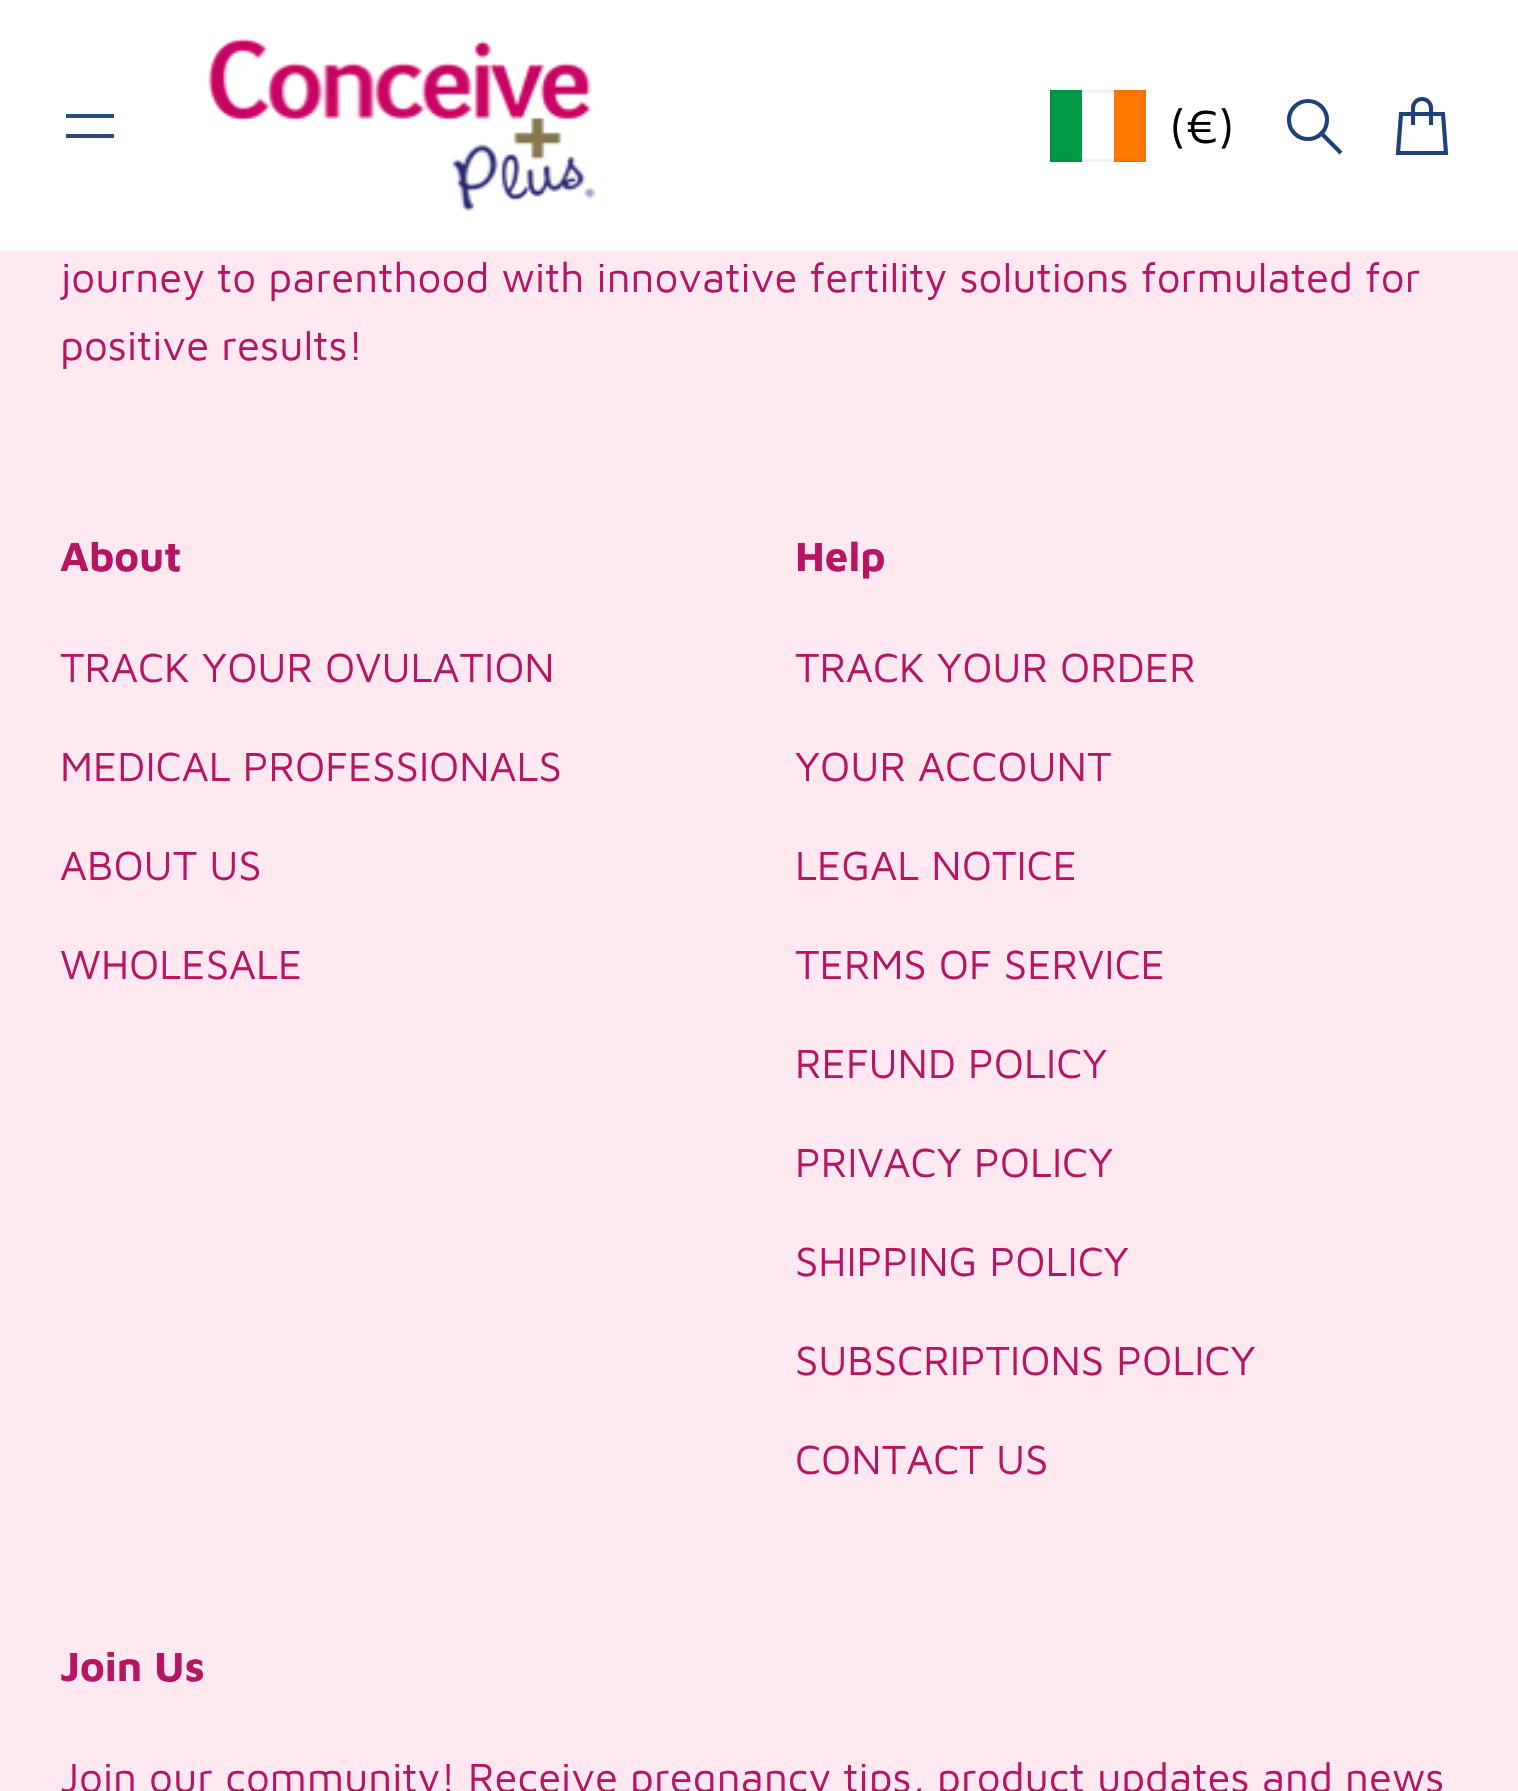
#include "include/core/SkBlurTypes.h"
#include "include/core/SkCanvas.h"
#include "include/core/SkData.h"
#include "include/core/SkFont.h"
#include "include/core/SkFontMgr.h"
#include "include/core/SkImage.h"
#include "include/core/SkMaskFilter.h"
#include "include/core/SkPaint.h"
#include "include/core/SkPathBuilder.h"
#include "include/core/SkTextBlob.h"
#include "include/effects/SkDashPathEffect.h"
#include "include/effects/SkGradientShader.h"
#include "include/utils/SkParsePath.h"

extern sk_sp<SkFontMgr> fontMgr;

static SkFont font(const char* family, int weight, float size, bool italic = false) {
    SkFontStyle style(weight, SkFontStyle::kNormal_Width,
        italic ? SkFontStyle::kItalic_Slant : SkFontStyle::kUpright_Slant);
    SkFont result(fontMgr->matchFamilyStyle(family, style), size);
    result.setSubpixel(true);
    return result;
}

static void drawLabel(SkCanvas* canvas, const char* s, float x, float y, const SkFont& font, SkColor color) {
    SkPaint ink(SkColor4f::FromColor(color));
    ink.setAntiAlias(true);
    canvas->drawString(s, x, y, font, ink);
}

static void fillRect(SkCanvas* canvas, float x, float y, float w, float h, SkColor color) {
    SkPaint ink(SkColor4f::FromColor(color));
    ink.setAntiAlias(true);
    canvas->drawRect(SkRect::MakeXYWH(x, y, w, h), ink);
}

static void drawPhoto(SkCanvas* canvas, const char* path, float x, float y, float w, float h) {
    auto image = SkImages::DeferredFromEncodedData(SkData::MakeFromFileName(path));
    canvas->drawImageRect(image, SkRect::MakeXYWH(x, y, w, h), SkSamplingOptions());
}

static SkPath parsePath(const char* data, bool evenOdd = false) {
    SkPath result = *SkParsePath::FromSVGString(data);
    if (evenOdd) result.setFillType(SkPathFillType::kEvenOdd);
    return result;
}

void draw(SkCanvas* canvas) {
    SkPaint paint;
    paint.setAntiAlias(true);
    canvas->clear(0xFFFFE8EF);
    fillRect(canvas, 0, 0, 1518, 249, 0xFFFFFFFF);
    fillRect(canvas, 0, 249, 1518, 3, 0xFFF4F6F8);
    fillRect(canvas, 66, 134, 48, 4, 0xFF294B83);
    fillRect(canvas, 66, 114, 48, 4, 0xFF294B83);
    drawPhoto(canvas, "assets/img1.png", 208, 38, 389, 174);
    fillRect(canvas, 1050, 90, 32, 72, 0xFF009A49);
    fillRect(canvas, 1114, 90, 32, 72, 0xFFFF7900);
    paint.setStroke(true);
    paint.setStrokeWidth(3);
    paint.setColor(0x0D000000);
    canvas->drawRect(SkRect::MakeXYWH(1051.5f, 91.5f, 93, 69), paint);
    SkFont font1 = font("Maven Pro", 400, 48);
    drawLabel(canvas, "(€)", 1169, 143, font1, 0xFF000000);
    paint.setStrokeWidth(4.1f);
    paint.setStrokeCap(SkPaint::kSquare_Cap);
    paint.setColor(0xFF1E417C);
    canvas->drawPath(parsePath("M1339.5 151.5L1321.5 133.5"), paint);
    paint.setStrokeCap(SkPaint::kButt_Cap);
    canvas->drawCircle(1308, 120, 19, paint);
    paint.setStrokeCap(SkPaint::kSquare_Cap);
    canvas->drawPath(parsePath("M1413 123V108C1413 103 1417 99 1422 99C1427 99 1431 103 1431 108V123M1398 153H1446L1443 114H1401Z"), paint);
    SkFont font2 = font("Maven Pro", 400, 42);
    drawLabel(canvas, "journey to parenthood with innovative fertility solutions formulated for", 60, 292, font2, 0xFFB71561);
    drawLabel(canvas, "positive results!", 60, 360, font2, 0xFFB71561);
    SkFont font3 = font("Maven Pro", 700, 42);
    drawLabel(canvas, "About", 60, 571, font3, 0xFFB71561);
    drawLabel(canvas, "TRACK YOUR OVULATION", 60, 682, font2, 0xFFB71561);
    drawLabel(canvas, "MEDICAL PROFESSIONALS", 60, 781, font2, 0xFFB71561);
    drawLabel(canvas, "ABOUT US", 60, 880, font2, 0xFFB71561);
    drawLabel(canvas, "WHOLESALE", 60, 979, font2, 0xFFB71561);
    drawLabel(canvas, "Help", 795, 571, font3, 0xFFB71561);
    drawLabel(canvas, "TRACK YOUR ORDER", 795, 682, font2, 0xFFB71561);
    drawLabel(canvas, "YOUR ACCOUNT", 795, 781, font2, 0xFFB71561);
    drawLabel(canvas, "LEGAL NOTICE", 795, 880, font2, 0xFFB71561);
    drawLabel(canvas, "TERMS OF SERVICE", 795, 979, font2, 0xFFB71561);
    drawLabel(canvas, "REFUND POLICY", 795, 1078, font2, 0xFFB71561);
    drawLabel(canvas, "PRIVACY POLICY", 795, 1177, font2, 0xFFB71561);
    drawLabel(canvas, "SHIPPING POLICY", 795, 1276, font2, 0xFFB71561);
    drawLabel(canvas, "SUBSCRIPTIONS POLICY", 795, 1375, font2, 0xFFB71561);
    drawLabel(canvas, "CONTACT US", 795, 1474, font2, 0xFFB71561);
    drawLabel(canvas, "Join Us", 60, 1681, font3, 0xFFB71561);
    drawLabel(canvas, "Join our community! Receive pregnancy tips, product updates and news", 60, 1792, font2, 0xFFB71561);
}
